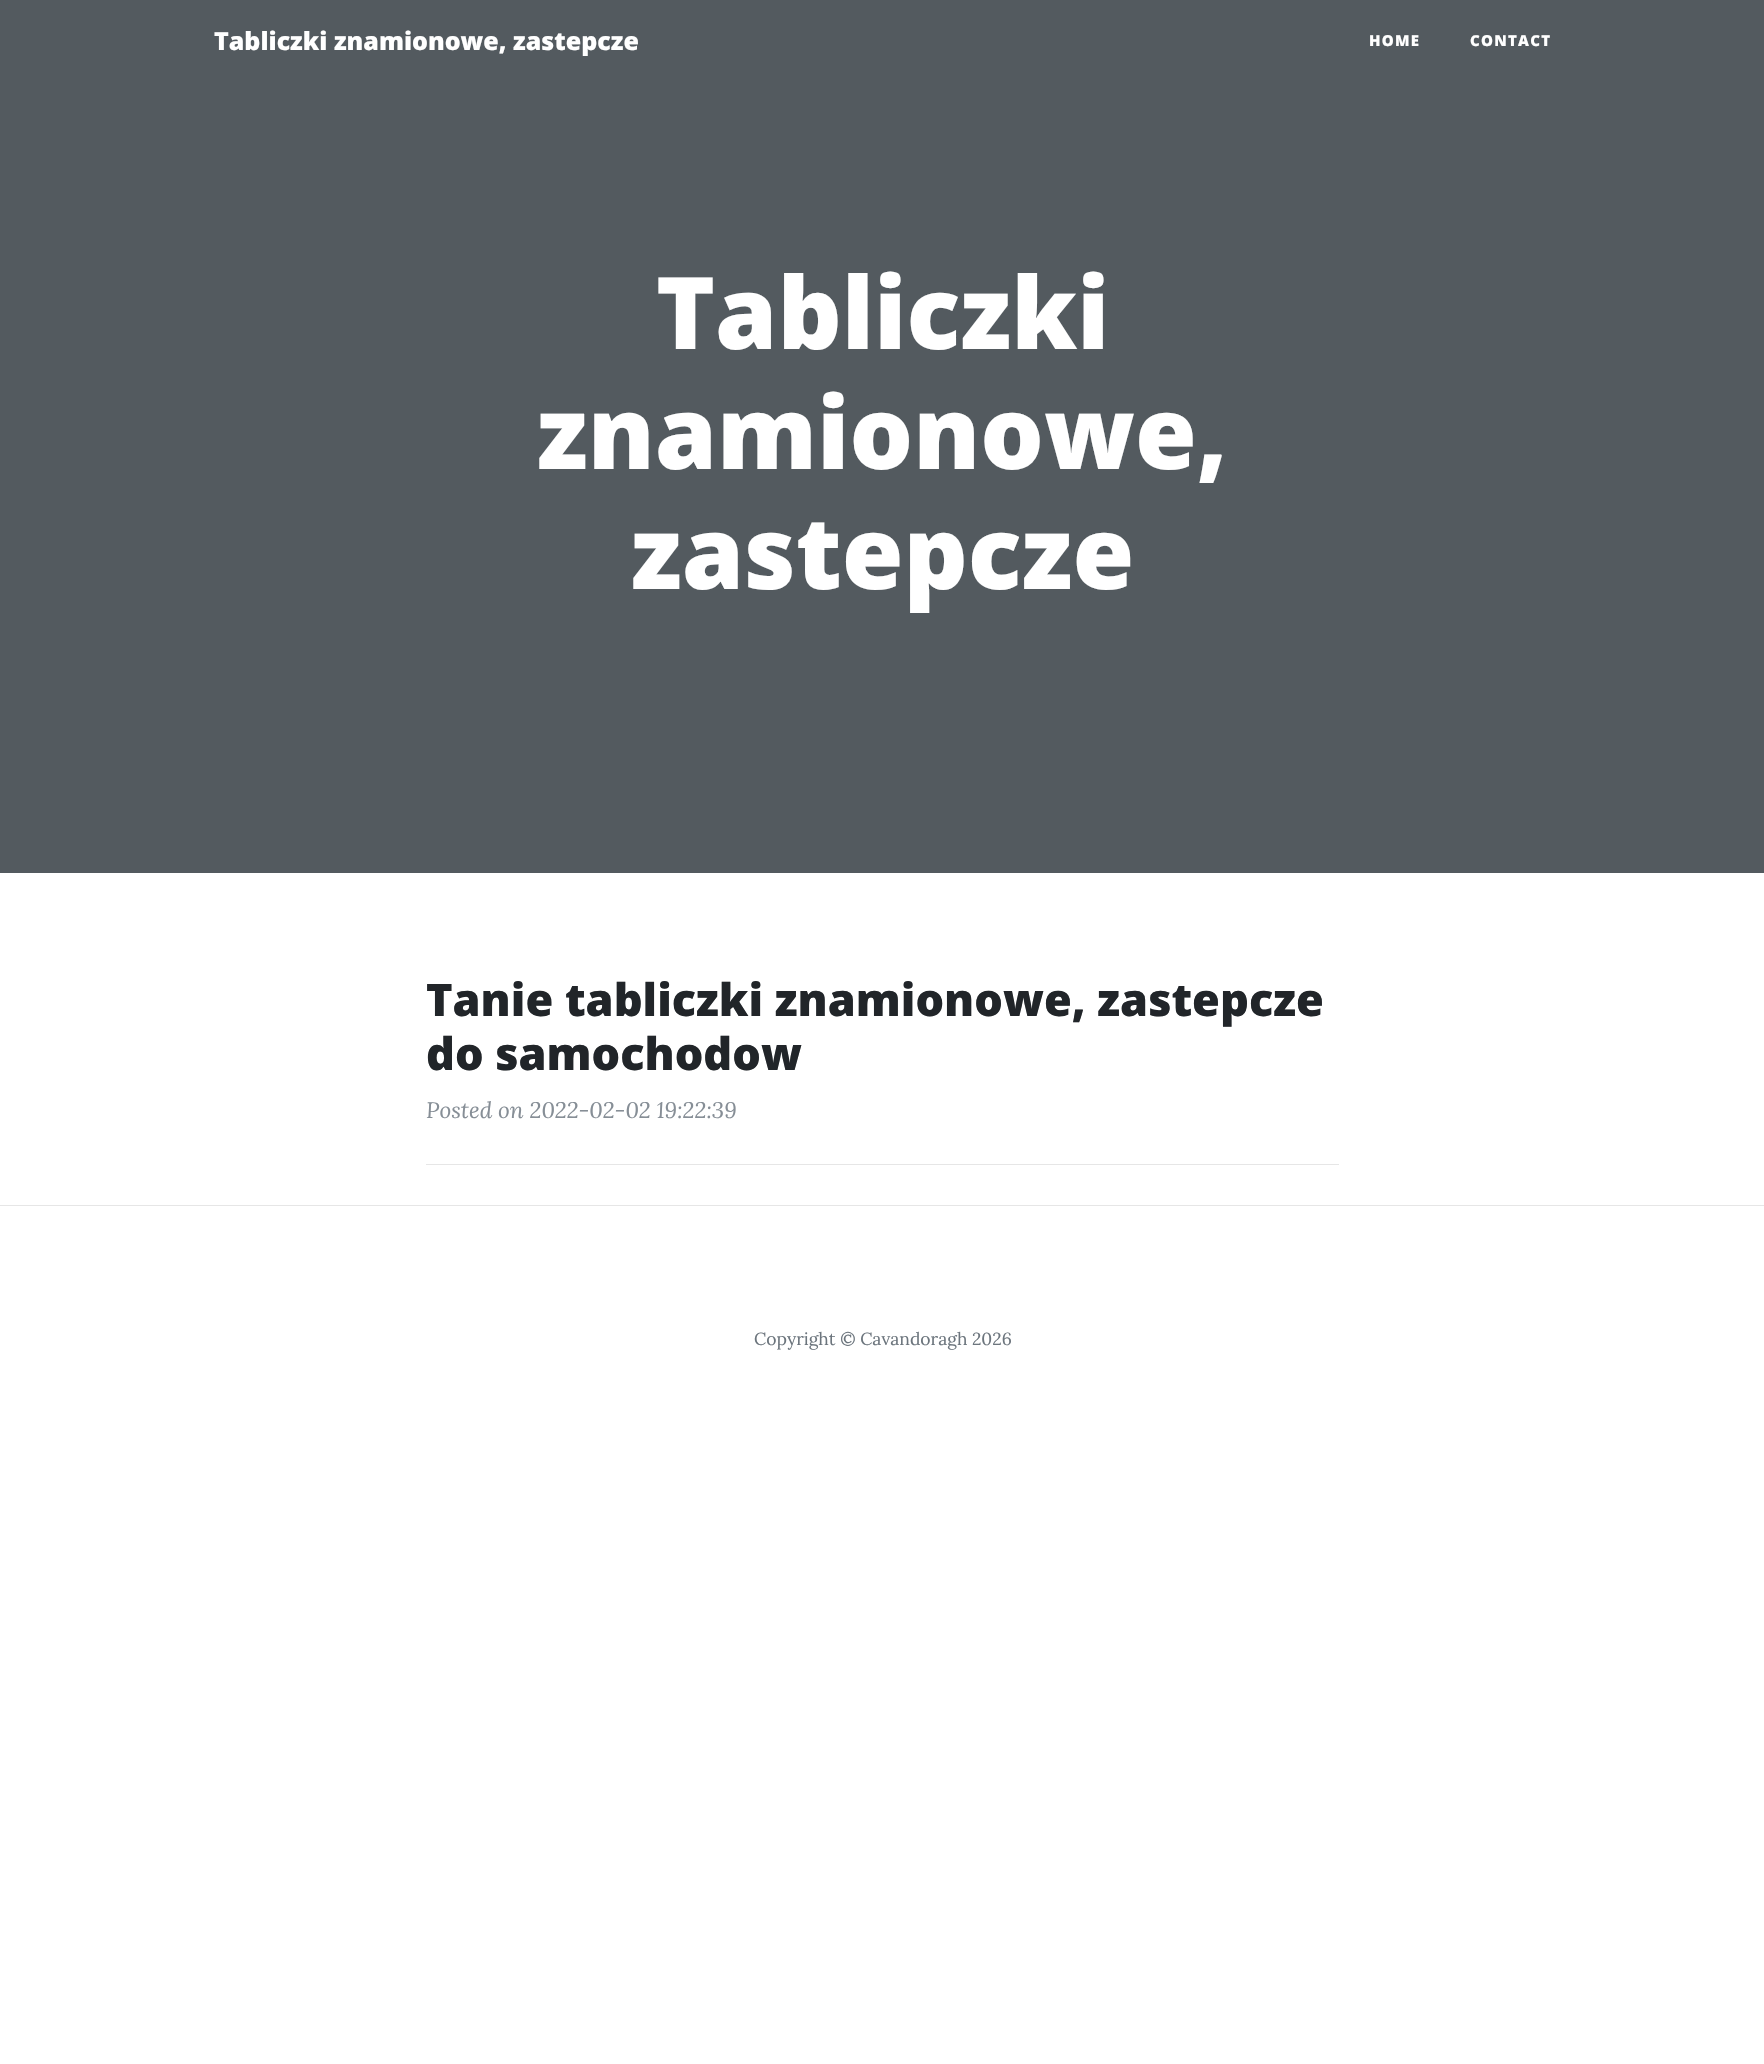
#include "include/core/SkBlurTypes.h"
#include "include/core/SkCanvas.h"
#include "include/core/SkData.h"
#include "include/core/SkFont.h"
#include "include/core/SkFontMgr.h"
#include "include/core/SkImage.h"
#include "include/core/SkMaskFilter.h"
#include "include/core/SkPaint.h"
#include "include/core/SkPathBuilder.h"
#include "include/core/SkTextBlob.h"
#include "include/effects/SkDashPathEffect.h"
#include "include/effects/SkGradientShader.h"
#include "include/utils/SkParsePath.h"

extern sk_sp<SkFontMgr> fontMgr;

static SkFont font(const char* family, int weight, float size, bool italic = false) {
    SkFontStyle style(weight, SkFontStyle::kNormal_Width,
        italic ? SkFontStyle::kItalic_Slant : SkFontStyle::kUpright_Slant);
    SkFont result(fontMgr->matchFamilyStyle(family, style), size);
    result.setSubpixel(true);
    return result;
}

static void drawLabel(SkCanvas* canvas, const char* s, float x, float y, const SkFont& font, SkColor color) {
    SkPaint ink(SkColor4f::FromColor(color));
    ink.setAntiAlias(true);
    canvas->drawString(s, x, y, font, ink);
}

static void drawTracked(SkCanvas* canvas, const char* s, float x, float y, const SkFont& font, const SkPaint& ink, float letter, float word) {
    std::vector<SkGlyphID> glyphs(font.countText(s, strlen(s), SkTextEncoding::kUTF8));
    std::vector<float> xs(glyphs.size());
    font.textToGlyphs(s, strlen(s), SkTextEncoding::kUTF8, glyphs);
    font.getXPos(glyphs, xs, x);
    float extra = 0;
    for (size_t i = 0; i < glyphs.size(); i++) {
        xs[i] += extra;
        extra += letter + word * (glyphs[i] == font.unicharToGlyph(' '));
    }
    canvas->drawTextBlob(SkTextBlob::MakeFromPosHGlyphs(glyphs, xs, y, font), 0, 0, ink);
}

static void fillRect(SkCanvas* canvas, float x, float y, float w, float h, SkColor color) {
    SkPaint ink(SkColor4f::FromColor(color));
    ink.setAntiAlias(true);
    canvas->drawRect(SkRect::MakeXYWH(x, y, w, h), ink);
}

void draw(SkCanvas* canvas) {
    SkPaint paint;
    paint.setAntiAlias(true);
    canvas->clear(0xFFFFFFFF);
    fillRect(canvas, 0, 0, 1764, 873, 0xFF535A5F);
    SkFont font1 = font("Open Sans", 800, 25);
    drawLabel(canvas, "Tabliczki znamionowe, zastepcze", 214, 50, font1, 0xFFFFFFFF);
    SkFont font2 = font("Open Sans", 800, 15);
    paint.setColor(0xFFFFFFFF);
    drawTracked(canvas, "HOME", 1369, 46, font2, paint, 1.25f, 0);
    drawTracked(canvas, "CONTACT", 1470, 46, font2, paint, 1.25f, 0);
    SkFont font3 = font("Open Sans", 800, 100);
    drawLabel(canvas, "Tabliczki", 656, 349, font3, 0xFFFFFFFF);
    drawLabel(canvas, "znamionowe,", 537, 469, font3, 0xFFFFFFFF);
    drawLabel(canvas, "zastepcze", 631, 589, font3, 0xFFFFFFFF);
    SkFont font4 = font("Open Sans", 800, 45);
    drawLabel(canvas, "Tanie tabliczki znamionowe, zastepcze", 426, 1016, font4, 0xFF212529);
    drawLabel(canvas, "do samochodow", 426, 1070, font4, 0xFF212529);
    SkFont font5 = font("Lora", 400, 22.5f, true);
    drawLabel(canvas, "Posted on 2022-02-02 19:22:39", 426, 1118, font5, 0xFF868E96);
    fillRect(canvas, 426, 1164, 913, 1, 0xFFE6E6E6);
    fillRect(canvas, 0, 1205, 1764, 1, 0xFFE6E6E6);
    SkFont font6 = font("Lora", 400, 17.5f);
    drawLabel(canvas, "Copyright © Cavandoragh 2026", 754, 1345, font6, 0xFF6C757D);
}
